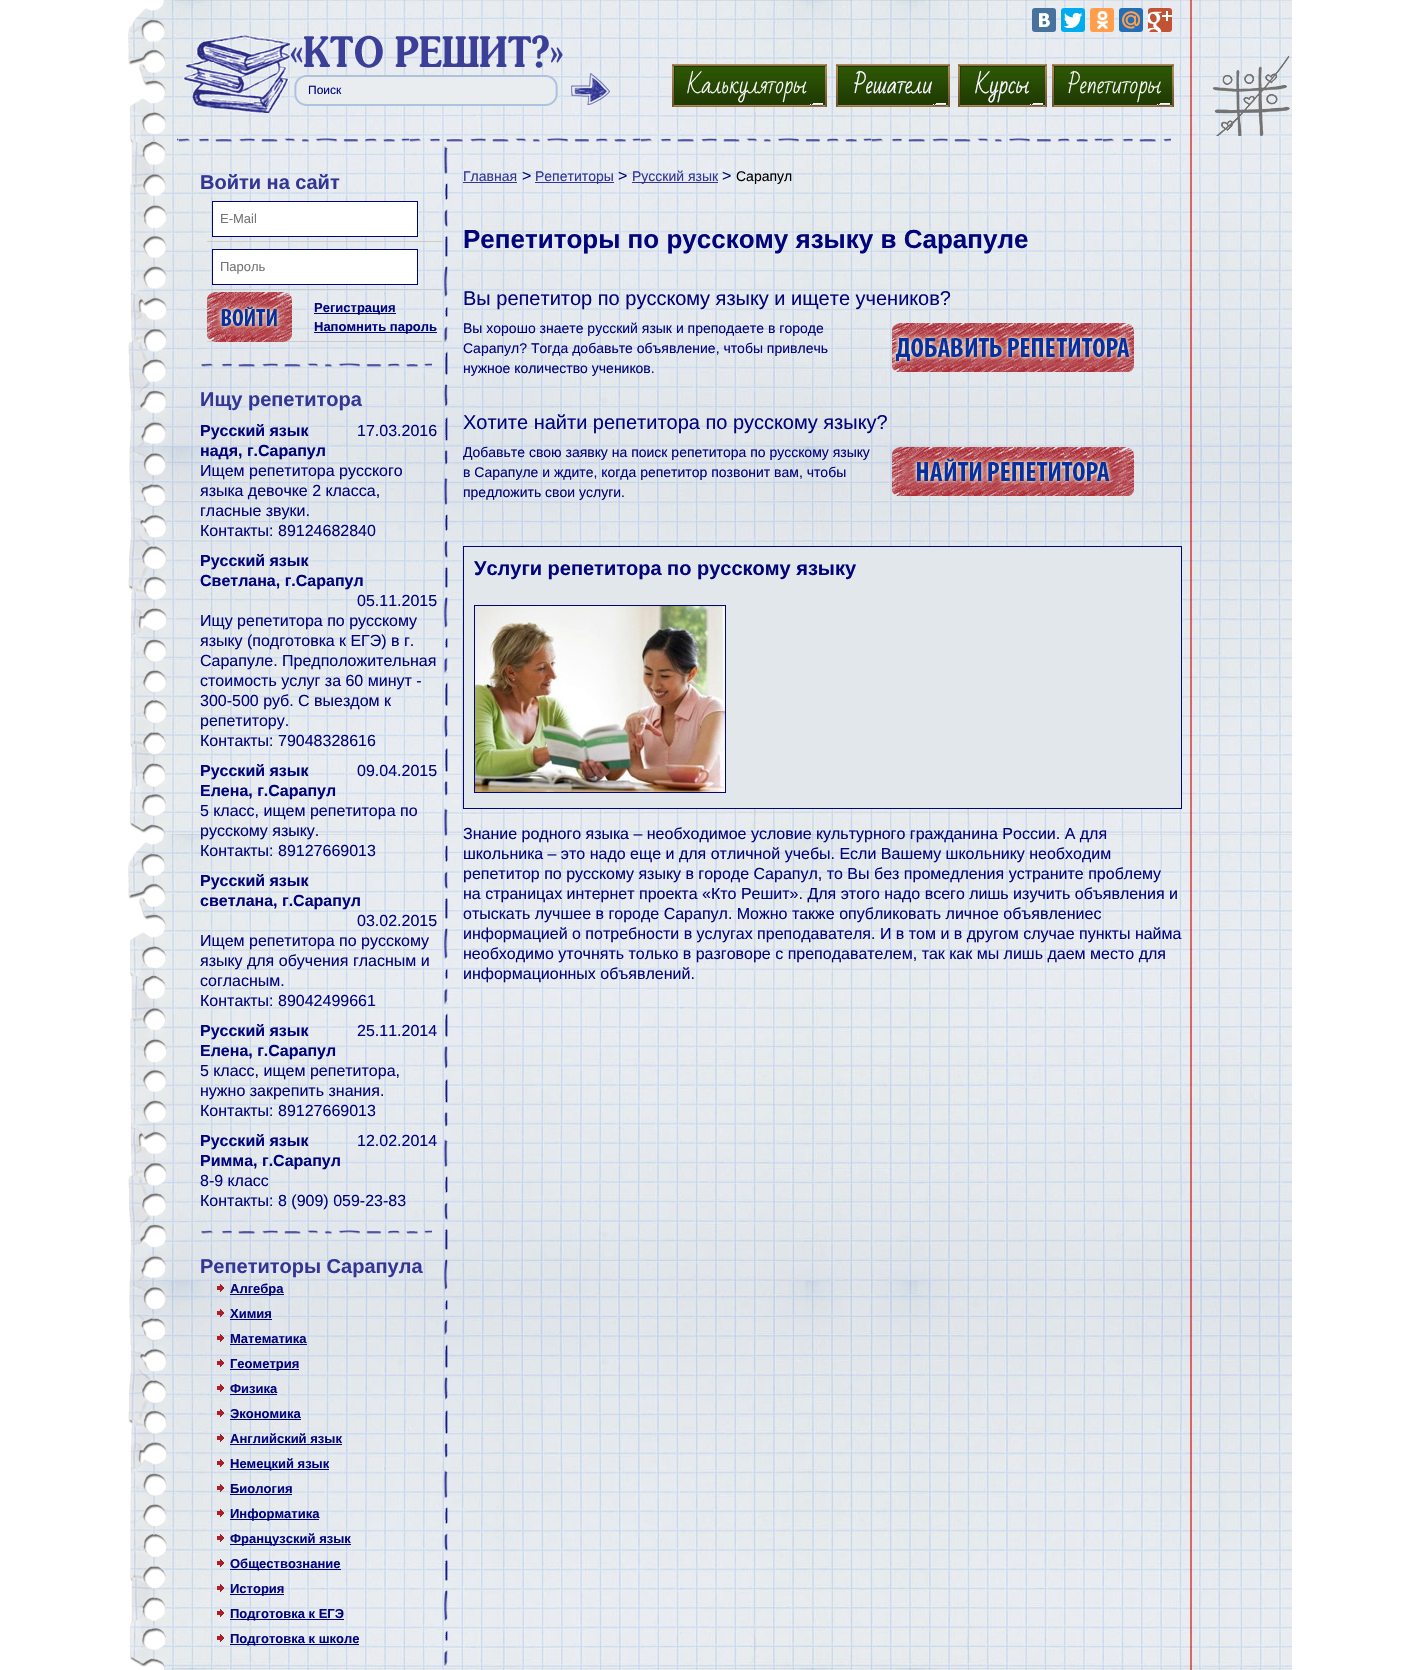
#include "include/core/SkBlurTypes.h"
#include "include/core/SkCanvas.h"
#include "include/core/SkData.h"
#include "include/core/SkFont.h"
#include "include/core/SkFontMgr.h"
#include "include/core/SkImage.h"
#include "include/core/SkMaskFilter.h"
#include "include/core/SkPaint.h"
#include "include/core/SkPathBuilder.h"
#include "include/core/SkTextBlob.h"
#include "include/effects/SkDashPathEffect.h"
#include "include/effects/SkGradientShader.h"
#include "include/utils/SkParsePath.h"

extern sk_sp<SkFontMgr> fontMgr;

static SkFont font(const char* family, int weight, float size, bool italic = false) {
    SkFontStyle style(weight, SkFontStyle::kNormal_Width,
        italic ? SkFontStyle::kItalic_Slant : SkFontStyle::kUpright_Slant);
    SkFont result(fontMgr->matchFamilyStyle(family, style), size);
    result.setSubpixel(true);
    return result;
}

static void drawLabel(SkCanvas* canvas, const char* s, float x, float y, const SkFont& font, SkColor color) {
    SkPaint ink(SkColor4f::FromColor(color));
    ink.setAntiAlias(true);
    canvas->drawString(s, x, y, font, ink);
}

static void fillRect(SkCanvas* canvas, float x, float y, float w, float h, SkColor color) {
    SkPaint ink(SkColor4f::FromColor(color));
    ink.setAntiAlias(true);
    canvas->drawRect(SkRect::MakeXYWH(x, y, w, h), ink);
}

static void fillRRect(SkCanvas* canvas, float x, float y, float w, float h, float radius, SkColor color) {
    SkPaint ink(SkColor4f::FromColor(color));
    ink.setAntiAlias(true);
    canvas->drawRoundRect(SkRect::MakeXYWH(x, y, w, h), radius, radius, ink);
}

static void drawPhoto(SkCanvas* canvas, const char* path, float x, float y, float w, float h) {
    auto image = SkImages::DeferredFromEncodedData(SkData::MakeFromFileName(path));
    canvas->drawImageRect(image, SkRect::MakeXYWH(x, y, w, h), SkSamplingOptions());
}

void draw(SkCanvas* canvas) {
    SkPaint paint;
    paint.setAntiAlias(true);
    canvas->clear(0xFFFFFFFF);
    drawPhoto(canvas, "assets/img1.png", 172, 0, 1120, 1670);
    drawPhoto(canvas, "assets/img2.png", 128, 0, 44, 1670);
    drawPhoto(canvas, "assets/img3.png", 1212, 55, 78, 81);
    drawPhoto(canvas, "assets/img4.png", 183, 35, 380, 78);
    drawPhoto(canvas, "assets/img5.png", 294, 75, 264, 31);
    SkFont font1 = font("Liberation Sans", 400, 12);
    drawLabel(canvas, "Поиск", 308, 94, font1, 0xFF01047B);
    drawPhoto(canvas, "assets/img6.png", 571, 73, 39, 32);
    fillRRect(canvas, 1032, 8, 24, 24, 3, 0xFF48729E);
    drawPhoto(canvas, "assets/img7.png", 1039, 13, 11, 14);
    fillRRect(canvas, 1061, 8, 24, 24, 3, 0xFF00ACED);
    drawPhoto(canvas, "assets/img8.png", 1064, 13, 18, 15);
    fillRRect(canvas, 1090, 8, 24, 24, 3, 0xFFFF9F4D);
    drawPhoto(canvas, "assets/img9.png", 1097, 11, 11, 18);
    fillRRect(canvas, 1119, 8, 24, 24, 3, 0xFF226EB7);
    drawPhoto(canvas, "assets/img10.png", 1122, 11, 18, 18);
    fillRRect(canvas, 1148, 8, 24, 24, 3, 0xFFC25234);
    drawPhoto(canvas, "assets/img11.png", 1148, 11, 24, 21);
    drawPhoto(canvas, "assets/img12.png", 672, 64, 155, 43);
    drawPhoto(canvas, "assets/img13.png", 836, 64, 114, 43);
    drawPhoto(canvas, "assets/img14.png", 958, 64, 89, 43);
    drawPhoto(canvas, "assets/img15.png", 1052, 64, 122, 43);
    drawPhoto(canvas, "assets/img16.png", 177, 138, 994, 4);
    drawPhoto(canvas, "assets/img17.png", 444, 146, 4, 1521);
    drawPhoto(canvas, "assets/img18.png", 201, 363, 231, 4);
    SkFont font2 = font("Liberation Sans", 700, 20);
    drawLabel(canvas, "Войти на сайт", 200, 189, font2, 0xFF333694);
    fillRect(canvas, 207, 241, 235, 1, 0xFFCCCCCC);
    paint.setColor(0xFFFFFFFF);
    canvas->drawRect(SkRect::MakeXYWH(212.5f, 201.5f, 205, 35), paint);
    paint.setStroke(true);
    paint.setStrokeWidth(1);
    paint.setColor(0xFF01047B);
    canvas->drawRect(SkRect::MakeXYWH(212.5f, 201.5f, 205, 35), paint);
    SkFont font3 = font("Liberation Sans", 400, 13);
    drawLabel(canvas, "E-Mail", 220, 223, font3, 0xFF757575);
    fillRect(canvas, 207, 289, 235, 1, 0xFFCCCCCC);
    paint.setStroke(false);
    paint.setColor(0xFFFFFFFF);
    canvas->drawRect(SkRect::MakeXYWH(212.5f, 249.5f, 205, 35), paint);
    paint.setStroke(true);
    paint.setColor(0xFF01047B);
    canvas->drawRect(SkRect::MakeXYWH(212.5f, 249.5f, 205, 35), paint);
    drawLabel(canvas, "Пароль", 220, 271, font3, 0xFF757575);
    fillRect(canvas, 207, 341, 235, 1, 0xFFCCCCCC);
    drawPhoto(canvas, "assets/img19.png", 207, 292, 85, 50);
    fillRect(canvas, 314, 313, 82, 1, 0xFF01047B);
    SkFont font4 = font("Liberation Sans", 700, 13);
    drawLabel(canvas, "Регистрация", 314, 312, font4, 0xFF01047B);
    fillRect(canvas, 314, 332, 123, 1, 0xFF01047B);
    drawLabel(canvas, "Напомнить пароль", 314, 331, font4, 0xFF01047B);
    drawPhoto(canvas, "assets/img20.png", 201, 1230, 231, 4);
    drawLabel(canvas, "Ищу репетитора", 200, 406, font2, 0xFF333694);
    SkFont font5 = font("Liberation Sans", 700, 16);
    drawLabel(canvas, "Русский язык", 200, 436, font5, 0xFF01047B);
    drawLabel(canvas, "надя, г.Сарапул", 200, 456, font5, 0xFF01047B);
    SkFont font6 = font("Liberation Sans", 400, 16);
    drawLabel(canvas, "17.03.2016", 357, 436, font6, 0xFF01047B);
    drawLabel(canvas, "Ищем репетитора русского", 200, 476, font6, 0xFF01047B);
    drawLabel(canvas, "языка девочке 2 класса,", 200, 496, font6, 0xFF01047B);
    drawLabel(canvas, "гласные звуки.", 200, 516, font6, 0xFF01047B);
    drawLabel(canvas, "Контакты: 89124682840", 200, 536, font6, 0xFF01047B);
    drawLabel(canvas, "Русский язык", 200, 566, font5, 0xFF01047B);
    drawLabel(canvas, "Светлана, г.Сарапул", 200, 586, font5, 0xFF01047B);
    drawLabel(canvas, "05.11.2015", 357, 606, font6, 0xFF01047B);
    drawLabel(canvas, "Ищу репетитора по русскому", 200, 626, font6, 0xFF01047B);
    drawLabel(canvas, "языку (подготовка к ЕГЭ) в г.", 200, 646, font6, 0xFF01047B);
    drawLabel(canvas, "Сарапуле. Предположительная", 200, 666, font6, 0xFF01047B);
    drawLabel(canvas, "стоимость услуг за 60 минут -", 200, 686, font6, 0xFF01047B);
    drawLabel(canvas, "300-500 руб. С выездом к", 200, 706, font6, 0xFF01047B);
    drawLabel(canvas, "репетитору.", 200, 726, font6, 0xFF01047B);
    drawLabel(canvas, "Контакты: 79048328616", 200, 746, font6, 0xFF01047B);
    drawLabel(canvas, "Русский язык", 200, 776, font5, 0xFF01047B);
    drawLabel(canvas, "Елена, г.Сарапул", 200, 796, font5, 0xFF01047B);
    drawLabel(canvas, "09.04.2015", 357, 776, font6, 0xFF01047B);
    drawLabel(canvas, "5 класс, ищем репетитора по", 200, 816, font6, 0xFF01047B);
    drawLabel(canvas, "русскому языку.", 200, 836, font6, 0xFF01047B);
    drawLabel(canvas, "Контакты: 89127669013", 200, 856, font6, 0xFF01047B);
    drawLabel(canvas, "Русский язык", 200, 886, font5, 0xFF01047B);
    drawLabel(canvas, "светлана, г.Сарапул", 200, 906, font5, 0xFF01047B);
    drawLabel(canvas, "03.02.2015", 357, 926, font6, 0xFF01047B);
    drawLabel(canvas, "Ищем репетитора по русскому", 200, 946, font6, 0xFF01047B);
    drawLabel(canvas, "языку для обучения гласным и", 200, 966, font6, 0xFF01047B);
    drawLabel(canvas, "согласным.", 200, 986, font6, 0xFF01047B);
    drawLabel(canvas, "Контакты: 89042499661", 200, 1006, font6, 0xFF01047B);
    drawLabel(canvas, "Русский язык", 200, 1036, font5, 0xFF01047B);
    drawLabel(canvas, "Елена, г.Сарапул", 200, 1056, font5, 0xFF01047B);
    drawLabel(canvas, "25.11.2014", 357, 1036, font6, 0xFF01047B);
    drawLabel(canvas, "5 класс, ищем репетитора,", 200, 1076, font6, 0xFF01047B);
    drawLabel(canvas, "нужно закрепить знания.", 200, 1096, font6, 0xFF01047B);
    drawLabel(canvas, "Контакты: 89127669013", 200, 1116, font6, 0xFF01047B);
    drawLabel(canvas, "Русский язык", 200, 1146, font5, 0xFF01047B);
    drawLabel(canvas, "Римма, г.Сарапул", 200, 1166, font5, 0xFF01047B);
    drawLabel(canvas, "12.02.2014", 357, 1146, font6, 0xFF01047B);
    drawLabel(canvas, "8-9 класс", 200, 1186, font6, 0xFF01047B);
    drawLabel(canvas, "Контакты: 8 (909) 059-23-83", 200, 1206, font6, 0xFF01047B);
    drawLabel(canvas, "Репетиторы Сарапула", 200, 1273, font2, 0xFF333694);
    drawPhoto(canvas, "assets/img21.png", 217, 1284, 7, 8);
    fillRect(canvas, 230, 1294, 54, 1, 0xFF01047B);
    drawLabel(canvas, "Алгебра", 230, 1293, font4, 0xFF01047B);
    drawPhoto(canvas, "assets/img22.png", 217, 1309, 7, 8);
    drawLabel(canvas, "Химия", 230, 1318, font4, 0xFF01047B);
    fillRect(canvas, 230, 1319, 42, 1, 0xFF01047B);
    drawPhoto(canvas, "assets/img23.png", 217, 1334, 7, 8);
    drawLabel(canvas, "Математика", 230, 1343, font4, 0xFF01047B);
    fillRect(canvas, 230, 1344, 77, 1, 0xFF01047B);
    drawPhoto(canvas, "assets/img24.png", 217, 1359, 7, 8);
    fillRect(canvas, 230, 1369, 69, 1, 0xFF01047B);
    drawLabel(canvas, "Геометрия", 230, 1368, font4, 0xFF01047B);
    drawPhoto(canvas, "assets/img25.png", 217, 1384, 7, 8);
    drawLabel(canvas, "Физика", 230, 1393, font4, 0xFF01047B);
    fillRect(canvas, 230, 1394, 47, 1, 0xFF01047B);
    drawPhoto(canvas, "assets/img26.png", 217, 1409, 7, 8);
    drawLabel(canvas, "Экономика", 230, 1418, font4, 0xFF01047B);
    fillRect(canvas, 230, 1419, 71, 1, 0xFF01047B);
    drawPhoto(canvas, "assets/img27.png", 217, 1434, 7, 8);
    drawLabel(canvas, "Английский язык", 230, 1443, font4, 0xFF01047B);
    fillRect(canvas, 230, 1444, 112, 1, 0xFF01047B);
    drawPhoto(canvas, "assets/img28.png", 217, 1459, 7, 8);
    fillRect(canvas, 230, 1469, 99, 1, 0xFF01047B);
    drawLabel(canvas, "Немецкий язык", 230, 1468, font4, 0xFF01047B);
    drawPhoto(canvas, "assets/img29.png", 217, 1484, 7, 8);
    drawLabel(canvas, "Биология", 230, 1493, font4, 0xFF01047B);
    fillRect(canvas, 230, 1494, 62, 1, 0xFF01047B);
    drawPhoto(canvas, "assets/img30.png", 217, 1509, 7, 8);
    fillRect(canvas, 230, 1519, 89, 1, 0xFF01047B);
    drawLabel(canvas, "Информатика", 230, 1518, font4, 0xFF01047B);
    drawPhoto(canvas, "assets/img31.png", 217, 1534, 7, 8);
    fillRect(canvas, 230, 1544, 121, 1, 0xFF01047B);
    drawLabel(canvas, "Французский язык", 230, 1543, font4, 0xFF01047B);
    drawPhoto(canvas, "assets/img32.png", 217, 1559, 7, 8);
    fillRect(canvas, 230, 1569, 111, 1, 0xFF01047B);
    drawLabel(canvas, "Обществознание", 230, 1568, font4, 0xFF01047B);
    drawPhoto(canvas, "assets/img33.png", 217, 1584, 7, 8);
    fillRect(canvas, 230, 1594, 54, 1, 0xFF01047B);
    drawLabel(canvas, "История", 230, 1593, font4, 0xFF01047B);
    drawPhoto(canvas, "assets/img34.png", 217, 1609, 7, 8);
    fillRect(canvas, 230, 1619, 114, 1, 0xFF01047B);
    drawLabel(canvas, "Подготовка к ЕГЭ", 230, 1618, font4, 0xFF01047B);
    drawPhoto(canvas, "assets/img35.png", 217, 1634, 7, 8);
    fillRect(canvas, 230, 1644, 129, 1, 0xFF01047B);
    drawLabel(canvas, "Подготовка к школе", 230, 1643, font4, 0xFF01047B);
    SkFont font7 = font("Liberation Sans", 400, 14);
    drawLabel(canvas, "Главная", 463, 181, font7, 0xFF333694);
    fillRect(canvas, 463, 182, 54, 1, 0xFF333694);
    drawLabel(canvas, ">", 522, 181, font6, 0xFF01047B);
    fillRect(canvas, 535, 182, 79, 1, 0xFF333694);
    drawLabel(canvas, "Репетиторы", 535, 181, font7, 0xFF333694);
    drawLabel(canvas, ">", 618, 181, font6, 0xFF01047B);
    fillRect(canvas, 632, 182, 86, 1, 0xFF333694);
    drawLabel(canvas, "Русский язык", 632, 181, font7, 0xFF333694);
    drawLabel(canvas, ">", 722, 181, font6, 0xFF01047B);
    drawLabel(canvas, "Сарапул", 736, 181, font7, 0xFF000000);
    SkFont font8 = font("Liberation Sans", 700, 26);
    drawLabel(canvas, "Репетиторы по русскому языку в Сарапуле", 463, 248, font8, 0xFF01047B);
    SkFont font9 = font("Liberation Sans", 400, 20);
    drawLabel(canvas, "Вы репетитор по русскому языку и ищете учеников?", 463, 305, font9, 0xFF01047B);
    drawLabel(canvas, "Вы хорошо знаете русский язык и преподаете в городе", 463, 333, font7, 0xFF01047B);
    drawLabel(canvas, "Сарапул? Тогда добавьте объявление, чтобы привлечь", 463, 353, font7, 0xFF01047B);
    drawLabel(canvas, "нужное количество учеников.", 463, 373, font7, 0xFF01047B);
    drawPhoto(canvas, "assets/img36.png", 892, 323, 242, 49);
    drawLabel(canvas, "Хотите найти репетитора по русскому языку?", 463, 429, font9, 0xFF01047B);
    drawLabel(canvas, "Добавьте свою заявку на поиск репетитора по русскому языку", 463, 457, font7, 0xFF01047B);
    drawLabel(canvas, "в Сарапуле и ждите, когда репетитор позвонит вам, чтобы", 463, 477, font7, 0xFF01047B);
    drawLabel(canvas, "предложить свои услуги.", 463, 497, font7, 0xFF01047B);
    drawPhoto(canvas, "assets/img37.png", 892, 447, 242, 49);
    paint.setStroke(false);
    paint.setColor(0xFFE2E7EB);
    canvas->drawRect(SkRect::MakeXYWH(463.5f, 546.5f, 718, 262), paint);
    paint.setStroke(true);
    paint.setColor(0xFF01047B);
    canvas->drawRect(SkRect::MakeXYWH(463.5f, 546.5f, 718, 262), paint);
    drawLabel(canvas, "Услуги репетитора по русскому языку", 474, 575, font2, 0xFF01047B);
    canvas->drawRect(SkRect::MakeXYWH(474.5f, 605.5f, 251, 187), paint);
    drawPhoto(canvas, "assets/img38.png", 475, 606, 250, 186);
    drawLabel(canvas, "Знание родного языка – необходимое условие культурного гражданина России. А для", 463, 839, font6, 0xFF01047B);
    drawLabel(canvas, "школьника – это надо еще и для отличной учебы. Если Вашему школьнику необходим", 463, 859, font6, 0xFF01047B);
    drawLabel(canvas, "репетитор по русскому языку в городе Сарапул, то Вы без промедления устраните проблему", 463, 879, font6, 0xFF01047B);
    drawLabel(canvas, "на страницах интернет проекта «Кто Решит». Для этого надо всего лишь изучить объявления и", 463, 899, font6, 0xFF01047B);
    drawLabel(canvas, "отыскать лучшее в городе Сарапул. Можно также опубликовать личное объявлениес", 463, 919, font6, 0xFF01047B);
    drawLabel(canvas, "информацией о потребности в услугах преподавателя. И в том и в другом случае пункты найма", 463, 939, font6, 0xFF01047B);
    drawLabel(canvas, "необходимо уточнять только в разговоре с преподавателем, так как мы лишь даем место для", 463, 959, font6, 0xFF01047B);
    drawLabel(canvas, "информационных объявлений.", 463, 979, font6, 0xFF01047B);
}
